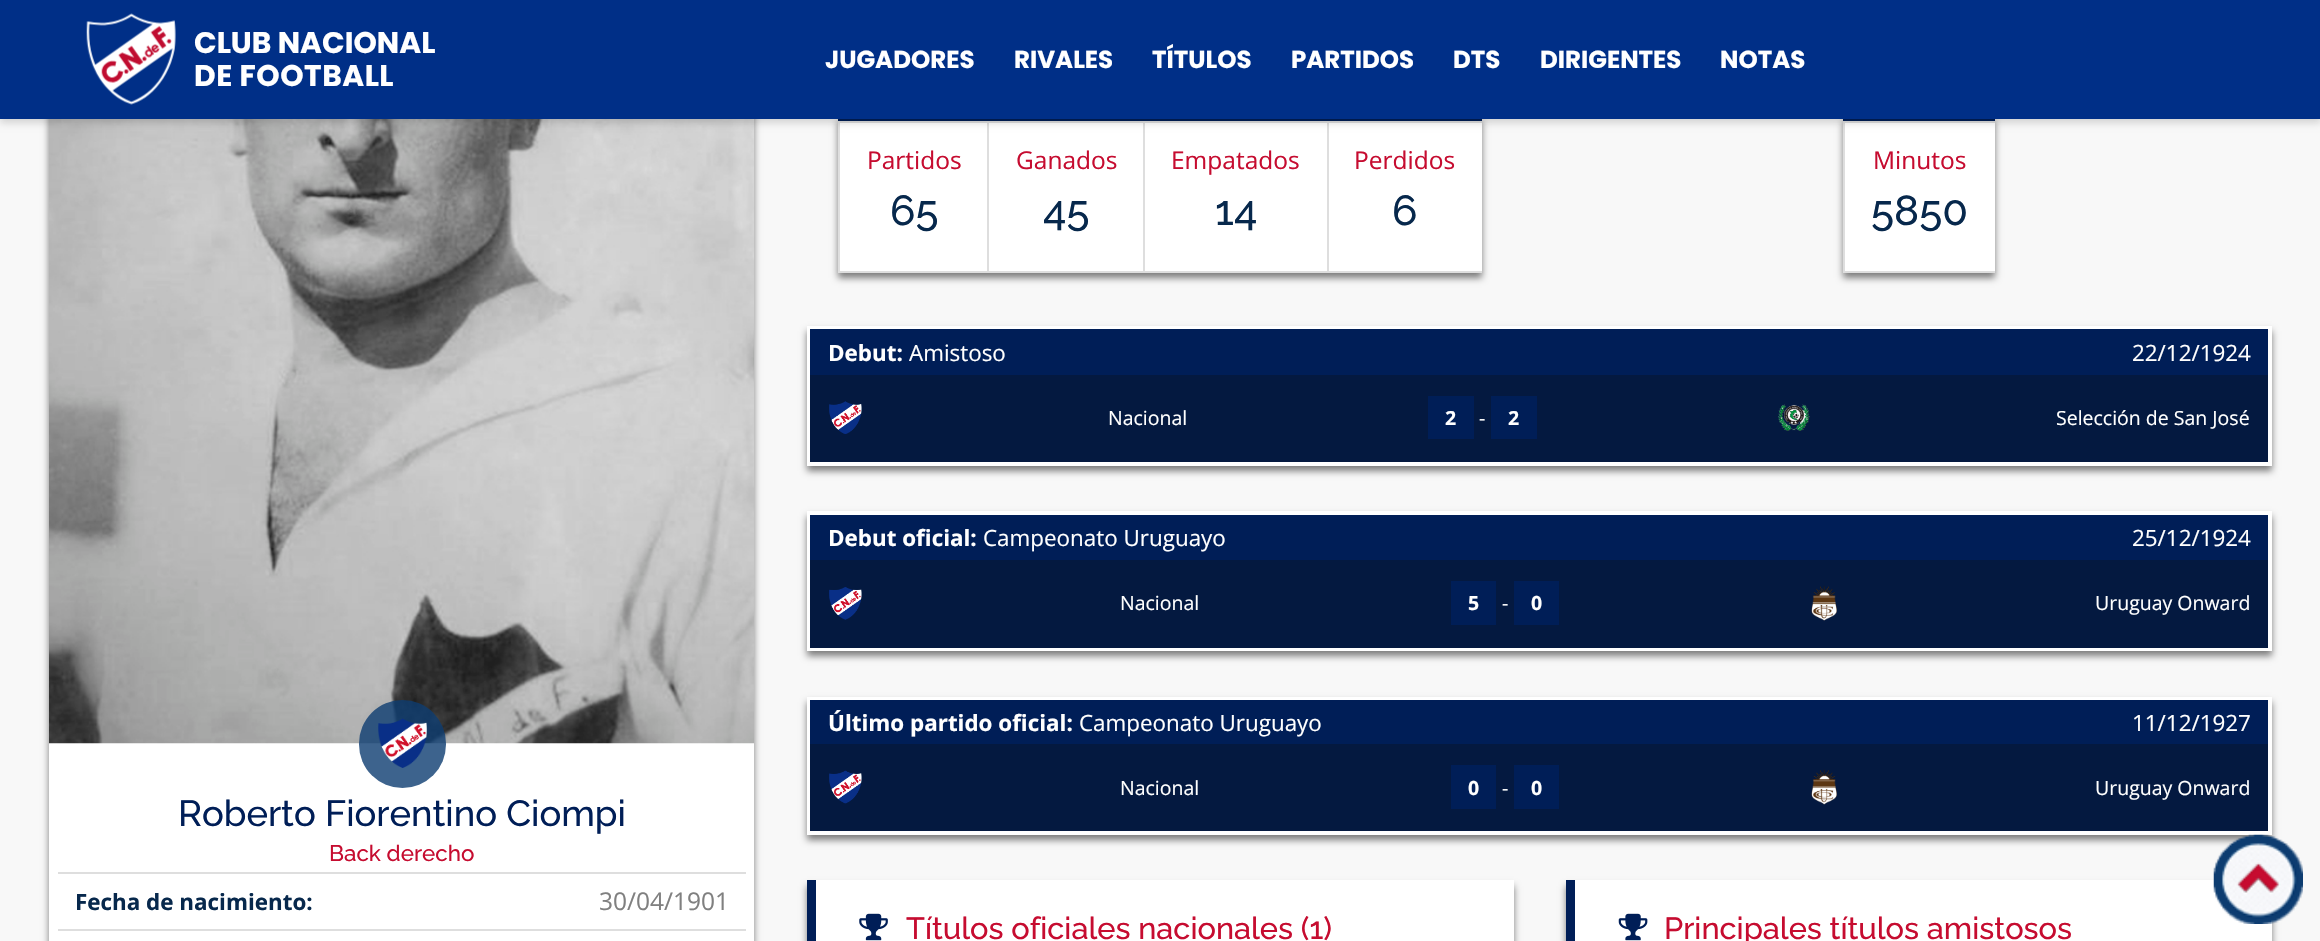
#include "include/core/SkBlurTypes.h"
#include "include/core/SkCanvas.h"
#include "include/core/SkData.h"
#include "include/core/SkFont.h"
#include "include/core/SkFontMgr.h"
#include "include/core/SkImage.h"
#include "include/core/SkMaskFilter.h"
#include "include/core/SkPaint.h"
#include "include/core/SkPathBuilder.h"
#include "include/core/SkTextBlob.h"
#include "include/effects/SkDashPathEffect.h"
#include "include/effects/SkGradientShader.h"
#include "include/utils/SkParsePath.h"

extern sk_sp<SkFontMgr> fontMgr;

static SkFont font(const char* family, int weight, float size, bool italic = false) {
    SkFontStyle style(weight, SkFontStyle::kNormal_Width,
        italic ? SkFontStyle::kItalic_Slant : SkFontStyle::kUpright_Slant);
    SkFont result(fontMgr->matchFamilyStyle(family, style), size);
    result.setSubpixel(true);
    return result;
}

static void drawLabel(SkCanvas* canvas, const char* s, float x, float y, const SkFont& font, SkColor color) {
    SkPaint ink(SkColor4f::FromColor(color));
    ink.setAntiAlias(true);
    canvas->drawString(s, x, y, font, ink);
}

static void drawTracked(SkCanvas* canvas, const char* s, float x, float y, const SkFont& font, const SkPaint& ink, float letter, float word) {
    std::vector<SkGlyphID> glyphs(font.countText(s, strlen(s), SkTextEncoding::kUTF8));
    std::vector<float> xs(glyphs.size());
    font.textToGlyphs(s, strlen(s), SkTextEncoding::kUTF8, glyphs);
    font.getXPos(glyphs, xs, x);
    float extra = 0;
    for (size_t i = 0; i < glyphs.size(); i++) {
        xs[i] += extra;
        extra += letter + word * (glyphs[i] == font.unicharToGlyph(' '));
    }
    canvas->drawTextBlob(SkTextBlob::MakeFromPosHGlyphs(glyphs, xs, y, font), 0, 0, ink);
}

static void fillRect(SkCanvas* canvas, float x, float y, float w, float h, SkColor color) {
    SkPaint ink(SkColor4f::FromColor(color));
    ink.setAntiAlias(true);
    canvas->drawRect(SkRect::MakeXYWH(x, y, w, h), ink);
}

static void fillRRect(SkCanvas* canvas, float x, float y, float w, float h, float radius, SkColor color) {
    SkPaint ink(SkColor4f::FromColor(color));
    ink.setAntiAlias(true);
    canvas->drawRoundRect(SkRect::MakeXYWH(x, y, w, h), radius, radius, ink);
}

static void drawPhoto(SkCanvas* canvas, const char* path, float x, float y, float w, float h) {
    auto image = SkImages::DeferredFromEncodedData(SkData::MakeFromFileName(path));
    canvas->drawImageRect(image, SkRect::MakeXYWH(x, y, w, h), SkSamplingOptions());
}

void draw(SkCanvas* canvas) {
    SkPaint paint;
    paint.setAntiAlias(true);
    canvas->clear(0xFFF8F8F8);
    paint.setColor(0x80000000);
    paint.setMaskFilter(SkMaskFilter::MakeBlur(kNormal_SkBlurStyle, 3.5f));
    canvas->drawRect(SkRect::MakeXYWH(49, -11, 705, 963), paint);
    paint.setMaskFilter(nullptr);
    fillRect(canvas, 49, 743, 705, 198, 0xFFFFFFFF);
    drawPhoto(canvas, "assets/img2.png", 49, 119, 706, 625);
    paint.setMaskFilter(SkMaskFilter::MakeBlur(kNormal_SkBlurStyle, 3.5f));
    canvas->drawRect(SkRect::MakeXYWH(838, 121, 644, 157), paint);
    paint.setMaskFilter(nullptr);
    fillRect(canvas, 840, 123, 642, 148, 0xFFFFFFFF);
    fillRect(canvas, 838, 119, 644, 2, 0xFF001E57);
    fillRect(canvas, 838, 121, 644, 2, 0xFFDEDEDE);
    fillRect(canvas, 838, 271, 644, 2, 0xFFDEDEDE);
    fillRect(canvas, 838, 121, 2, 152, 0xFFDEDEDE);
    fillRect(canvas, 987, 121, 2, 152, 0xFFDEDEDE);
    fillRect(canvas, 1143, 121, 2, 152, 0xFFDEDEDE);
    fillRect(canvas, 1327, 121, 2, 152, 0xFFDEDEDE);
    paint.setMaskFilter(SkMaskFilter::MakeBlur(kNormal_SkBlurStyle, 3.5f));
    canvas->drawRect(SkRect::MakeXYWH(1843, 121, 152, 157), paint);
    paint.setMaskFilter(nullptr);
    fillRect(canvas, 1845, 123, 150, 148, 0xFFFFFFFF);
    fillRect(canvas, 1843, 119, 152, 2, 0xFF001E57);
    fillRect(canvas, 1843, 121, 152, 2, 0xFFDEDEDE);
    fillRect(canvas, 1843, 271, 152, 2, 0xFFDEDEDE);
    fillRect(canvas, 1843, 121, 2, 152, 0xFFDEDEDE);
    paint.setColor(0x26000000);
    paint.setMaskFilter(SkMaskFilter::MakeBlur(kNormal_SkBlurStyle, 3.5f));
    canvas->drawRect(SkRect::MakeXYWH(0, 4, 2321, 119), paint);
    paint.setMaskFilter(nullptr);
    fillRect(canvas, 0, 0, 2320, 119, 0xFF002F87);
    drawPhoto(canvas, "assets/img1.png", 86, 13, 90, 92);
    SkFont font1 = font("Poppins", 700, 29.75f);
    drawLabel(canvas, "CLUB NACIONAL", 194, 53, font1, 0xFFFFFFFF);
    paint.setColor(0xFFFFFFFF);
    drawTracked(canvas, "DE FOOTBALL", 194, 86, font1, paint, 0.5f, 0);
    SkFont font2 = font("Poppins", 700, 24.5f);
    drawLabel(canvas, "JUGADORES", 825, 68, font2, 0xFFFFFFFF);
    drawLabel(canvas, "RIVALES", 1014, 68, font2, 0xFFFFFFFF);
    drawLabel(canvas, "TÍTULOS", 1152, 68, font2, 0xFFFFFFFF);
    drawLabel(canvas, "PARTIDOS", 1291, 68, font2, 0xFFFFFFFF);
    drawLabel(canvas, "DTS", 1453, 68, font2, 0xFFFFFFFF);
    drawLabel(canvas, "DIRIGENTES", 1540, 68, font2, 0xFFFFFFFF);
    drawLabel(canvas, "NOTAS", 1720, 68, font2, 0xFFFFFFFF);
    fillRRect(canvas, 359, 700, 87, 88, 43.5f, 0xCC0D3C70);
    drawPhoto(canvas, "assets/img3.png", 378, 718, 49, 50);
    SkFont font3 = font("Raleway", 500, 36.4f);
    drawLabel(canvas, "Roberto Fiorentino Ciompi", 178, 826, font3, 0xFF001E57);
    SkFont font4 = font("Raleway", 500, 22.4f);
    drawLabel(canvas, "Back derecho", 329, 861, font4, 0xFFC60C30);
    fillRect(canvas, 58, 872, 688, 2, 0xFFDEDEDE);
    SkFont font5 = font("Open Sans", 700, 22.4f);
    drawLabel(canvas, "Fecha de nacimiento:", 75, 910, font5, 0xFF07284C);
    SkFont font6 = font("Open Sans", 400, 24.5f);
    drawLabel(canvas, "30/04/1901", 599, 910, font6, 0xFF808080);
    fillRect(canvas, 58, 929, 688, 2, 0xFFDEDEDE);
    drawLabel(canvas, "Partidos", 867, 169, font6, 0xFFC60C30);
    SkFont font7 = font("Raleway", 500, 42);
    drawLabel(canvas, "65", 890, 225, font7, 0xFF07284C);
    drawLabel(canvas, "Ganados", 1016, 169, font6, 0xFFC60C30);
    drawLabel(canvas, "45", 1043, 225, font7, 0xFF07284C);
    drawLabel(canvas, "Empatados", 1171, 169, font6, 0xFFC60C30);
    drawLabel(canvas, "14", 1215, 225, font7, 0xFF07284C);
    drawLabel(canvas, "Perdidos", 1354, 169, font6, 0xFFC60C30);
    drawLabel(canvas, "6", 1392, 225, font7, 0xFF07284C);
    drawLabel(canvas, "Minutos", 1873, 169, font6, 0xFFC60C30);
    drawLabel(canvas, "5850", 1871, 225, font7, 0xFF07284C);
    paint.setColor(0x80000000);
    paint.setMaskFilter(SkMaskFilter::MakeBlur(kNormal_SkBlurStyle, 3.5f));
    canvas->drawRect(SkRect::MakeXYWH(807, 331, 1465, 140), paint);
    paint.setMaskFilter(nullptr);
    fillRect(canvas, 807, 326, 1465, 140, 0xFFFFFFFF);
    fillRect(canvas, 810, 329, 1458, 46, 0xFF001E57);
    drawLabel(canvas, "Debut:", 828, 361, font5, 0xFFFFFFFF);
    SkFont font8 = font("Open Sans", 400, 22.4f);
    drawLabel(canvas, "Amistoso", 909, 361, font8, 0xFFFFFFFF);
    drawLabel(canvas, "22/12/1924", 2132, 361, font8, 0xFFFFFFFF);
    fillRect(canvas, 810, 375, 1458, 87, 0xFF041940);
    drawPhoto(canvas, "assets/img4.png", 829, 401, 33, 33);
    SkFont font9 = font("Open Sans", 400, 19.5f);
    drawLabel(canvas, "Nacional", 1108, 425, font9, 0xFFFFFFFF);
    fillRect(canvas, 1428, 396, 46, 43, 0xFF001E57);
    SkFont font10 = font("Open Sans", 700, 19.5f);
    drawLabel(canvas, "2", 1445, 425, font10, 0xFFFFFFFF);
    drawLabel(canvas, "-", 1479, 425, font9, 0xFFFFFFFF);
    fillRect(canvas, 1491, 396, 46, 43, 0xFF001E57);
    drawLabel(canvas, "2", 1508, 425, font10, 0xFFFFFFFF);
    drawPhoto(canvas, "assets/img5.png", 1778, 404, 32, 27);
    drawLabel(canvas, "Selección de San José", 2056, 425, font9, 0xFFFFFFFF);
    paint.setMaskFilter(SkMaskFilter::MakeBlur(kNormal_SkBlurStyle, 3.5f));
    canvas->drawRect(SkRect::MakeXYWH(807, 516, 1465, 140), paint);
    paint.setMaskFilter(nullptr);
    fillRect(canvas, 807, 511, 1465, 140, 0xFFFFFFFF);
    fillRect(canvas, 810, 515, 1458, 45, 0xFF001E57);
    drawLabel(canvas, "Debut oficial:", 828, 546, font5, 0xFFFFFFFF);
    drawLabel(canvas, "Campeonato Uruguayo", 983, 546, font8, 0xFFFFFFFF);
    drawLabel(canvas, "25/12/1924", 2132, 546, font8, 0xFFFFFFFF);
    fillRect(canvas, 810, 560, 1458, 88, 0xFF041940);
    drawPhoto(canvas, "assets/img6.png", 829, 587, 33, 33);
    drawLabel(canvas, "Nacional", 1120, 610, font9, 0xFFFFFFFF);
    fillRect(canvas, 1451, 581, 45, 44, 0xFF001E57);
    drawLabel(canvas, "5", 1468, 610, font10, 0xFFFFFFFF);
    drawLabel(canvas, "-", 1502, 610, font9, 0xFFFFFFFF);
    fillRect(canvas, 1514, 581, 45, 44, 0xFF001E57);
    drawLabel(canvas, "0", 1531, 610, font10, 0xFFFFFFFF);
    drawPhoto(canvas, "assets/img7.png", 1811, 585, 26, 36);
    drawLabel(canvas, "Uruguay Onward", 2095, 610, font9, 0xFFFFFFFF);
    paint.setMaskFilter(SkMaskFilter::MakeBlur(kNormal_SkBlurStyle, 3.5f));
    canvas->drawRect(SkRect::MakeXYWH(807, 702, 1465, 138), paint);
    paint.setMaskFilter(nullptr);
    fillRect(canvas, 807, 697, 1465, 138, 0xFFFFFFFF);
    fillRect(canvas, 810, 700, 1458, 44, 0xFF001E57);
    drawLabel(canvas, "Último partido oficial:", 828, 731, font5, 0xFFFFFFFF);
    drawLabel(canvas, "Campeonato Uruguayo", 1079, 731, font8, 0xFFFFFFFF);
    drawLabel(canvas, "11/12/1927", 2132, 731, font8, 0xFFFFFFFF);
    fillRect(canvas, 810, 744, 1458, 87, 0xFF041940);
    drawPhoto(canvas, "assets/img8.png", 829, 770, 33, 34);
    drawLabel(canvas, "Nacional", 1120, 795, font9, 0xFFFFFFFF);
    fillRect(canvas, 1451, 765, 45, 44, 0xFF001E57);
    drawLabel(canvas, "0", 1468, 795, font10, 0xFFFFFFFF);
    drawLabel(canvas, "-", 1502, 795, font9, 0xFFFFFFFF);
    fillRect(canvas, 1514, 765, 45, 44, 0xFF001E57);
    drawLabel(canvas, "0", 1531, 795, font10, 0xFFFFFFFF);
    drawPhoto(canvas, "assets/img9.png", 1811, 769, 26, 36);
    drawLabel(canvas, "Uruguay Onward", 2095, 795, font9, 0xFFFFFFFF);
    paint.setMaskFilter(SkMaskFilter::MakeBlur(kNormal_SkBlurStyle, 3.5f));
    canvas->drawRect(SkRect::MakeXYWH(807, 886, 707, 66), paint);
    paint.setMaskFilter(nullptr);
    fillRect(canvas, 816, 880, 698, 61, 0xFFFFFFFF);
    fillRect(canvas, 807, 880, 9, 61, 0xFF001E57);
    drawPhoto(canvas, "assets/img10.png", 859, 913, 29, 28);
    SkFont font11 = font("Raleway", 500, 30.75f);
    drawLabel(canvas, "Títulos oficiales nacionales (1)", 906, 939, font11, 0xFFC60C30);
    paint.setMaskFilter(SkMaskFilter::MakeBlur(kNormal_SkBlurStyle, 3.5f));
    canvas->drawRect(SkRect::MakeXYWH(1566, 886, 706, 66), paint);
    paint.setMaskFilter(nullptr);
    fillRect(canvas, 1575, 880, 697, 61, 0xFFFFFFFF);
    fillRect(canvas, 1566, 880, 9, 61, 0xFF001E57);
    drawPhoto(canvas, "assets/img11.png", 1618, 913, 30, 28);
    drawLabel(canvas, "Principales títulos amistosos", 1664, 939, font11, 0xFFC60C30);
    drawPhoto(canvas, "assets/img12.png", 2213, 834, 90, 90);
}
